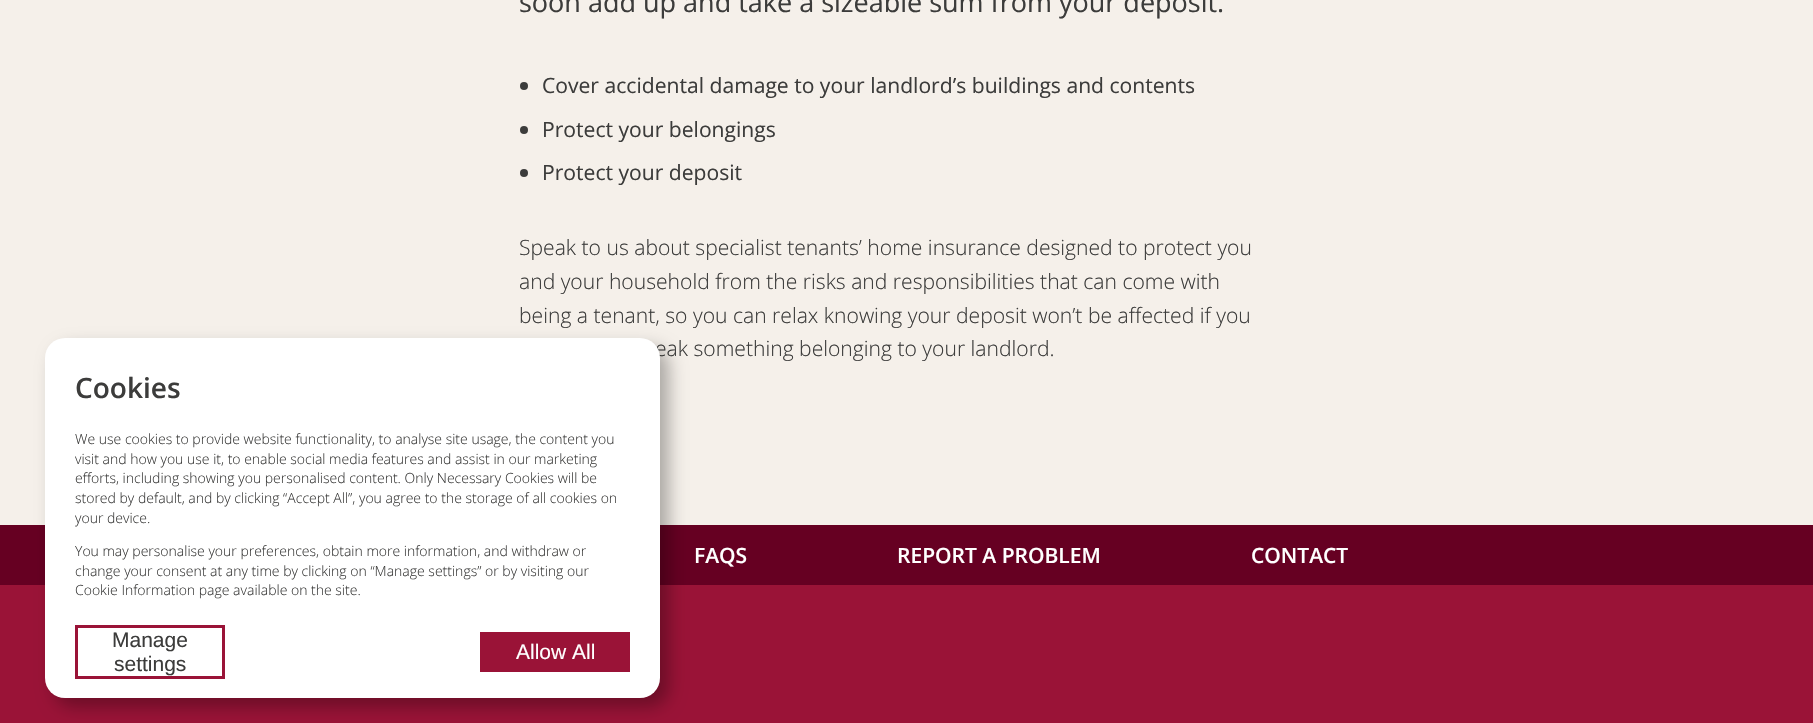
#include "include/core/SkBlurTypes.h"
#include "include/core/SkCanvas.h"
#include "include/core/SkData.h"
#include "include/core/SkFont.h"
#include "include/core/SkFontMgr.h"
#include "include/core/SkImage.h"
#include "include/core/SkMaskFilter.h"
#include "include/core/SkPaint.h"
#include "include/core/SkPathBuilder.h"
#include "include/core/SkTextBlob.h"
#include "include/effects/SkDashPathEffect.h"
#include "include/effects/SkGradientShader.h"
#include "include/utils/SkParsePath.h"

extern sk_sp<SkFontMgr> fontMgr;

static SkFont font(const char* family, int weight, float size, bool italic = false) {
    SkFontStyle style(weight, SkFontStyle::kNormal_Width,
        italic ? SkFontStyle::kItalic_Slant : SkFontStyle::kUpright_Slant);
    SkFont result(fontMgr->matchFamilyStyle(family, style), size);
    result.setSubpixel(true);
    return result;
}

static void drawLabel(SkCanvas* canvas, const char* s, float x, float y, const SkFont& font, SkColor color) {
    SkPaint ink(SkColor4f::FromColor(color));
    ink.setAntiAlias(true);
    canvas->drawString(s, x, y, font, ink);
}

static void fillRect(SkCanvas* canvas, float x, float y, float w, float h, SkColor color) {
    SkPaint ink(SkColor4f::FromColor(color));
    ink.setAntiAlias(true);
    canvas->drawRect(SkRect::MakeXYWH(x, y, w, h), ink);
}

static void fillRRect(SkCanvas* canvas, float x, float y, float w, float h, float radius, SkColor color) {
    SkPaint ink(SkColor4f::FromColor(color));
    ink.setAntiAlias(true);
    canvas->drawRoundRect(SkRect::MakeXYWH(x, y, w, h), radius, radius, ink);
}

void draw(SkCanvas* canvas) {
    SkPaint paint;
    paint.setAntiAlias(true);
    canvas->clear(0xFFF5F0EA);
    SkFont font1 = font("Open Sans", 400, 27);
    drawLabel(canvas, "soon add up and take a sizeable sum from your deposit.", 519, 12, font1, 0xFF3C3C3B);
    paint.setColor(0xFF3C3C3B);
    canvas->drawCircle(524, 86, 4, paint);
    SkFont font2 = font("Open Sans", 400, 21.1f);
    drawLabel(canvas, "Cover accidental damage to your landlord’s buildings and contents", 542, 93, font2, 0xFF3C3C3B);
    canvas->drawCircle(524, 130, 4, paint);
    drawLabel(canvas, "Protect your belongings", 542, 137, font2, 0xFF3C3C3B);
    canvas->drawCircle(524, 173, 4, paint);
    drawLabel(canvas, "Protect your deposit", 542, 180, font2, 0xFF3C3C3B);
    SkFont font3 = font("Open Sans", 300, 21.1f);
    drawLabel(canvas, "Speak to us about specialist tenants’ home insurance designed to protect you", 519, 255, font3, 0xFF3C3C3B);
    drawLabel(canvas, "and your household from the risks and responsibilities that can come with", 519, 289, font3, 0xFF3C3C3B);
    drawLabel(canvas, "being a tenant, so you can relax knowing your deposit won’t be affected if you", 519, 323, font3, 0xFF3C3C3B);
    drawLabel(canvas, "eak something belonging to your landlord.", 655, 356, font3, 0xFF3C3C3B);
    fillRect(canvas, 0, 585, 1813, 138, 0xFF9A1337);
    fillRect(canvas, 0, 525, 1813, 60, 0xFF660022);
    paint.setColor(0x4D000000);
    paint.setMaskFilter(SkMaskFilter::MakeBlur(kNormal_SkBlurStyle, 8.5f));
    canvas->drawRoundRect(SkRect::MakeXYWH(54, 347, 615, 360), 20, 20, paint);
    paint.setMaskFilter(nullptr);
    fillRRect(canvas, 45, 338, 615, 360, 20, 0xFFFFFFFF);
    SkFont font4 = font("Open Sans", 600, 28);
    drawLabel(canvas, "Cookies", 75, 398, font4, 0xFF3C3C3B);
    SkFont font5 = font("Open Sans", 300, 14);
    drawLabel(canvas, "We use cookies to provide website functionality, to analyse site usage, the content you", 75, 444, font5, 0xFF3C3C3B);
    drawLabel(canvas, "visit and how you use it, to enable social media features and assist in our marketing", 75, 464, font5, 0xFF3C3C3B);
    drawLabel(canvas, "efforts, including showing you personalised content. Only Necessary Cookies will be", 75, 483, font5, 0xFF3C3C3B);
    drawLabel(canvas, "stored by default, and by clicking “Accept All”, you agree to the storage of all cookies on", 75, 503, font5, 0xFF3C3C3B);
    drawLabel(canvas, "your device.", 75, 523, font5, 0xFF3C3C3B);
    drawLabel(canvas, "You may personalise your preferences, obtain more information, and withdraw or", 75, 556, font5, 0xFF3C3C3B);
    drawLabel(canvas, "change your consent at any time by clicking on “Manage settings” or by visiting our", 75, 576, font5, 0xFF3C3C3B);
    drawLabel(canvas, "Cookie Information page available on the site.", 75, 595, font5, 0xFF3C3C3B);
    paint.setStroke(true);
    paint.setStrokeWidth(3);
    paint.setColor(0xFF9A1337);
    canvas->drawRect(SkRect::MakeXYWH(76.5f, 626.5f, 147, 51), paint);
    SkFont font6 = font("Liberation Sans", 400, 21);
    drawLabel(canvas, "Manage", 112, 647, font6, 0xFF3C3C3B);
    drawLabel(canvas, "settings", 114, 671, font6, 0xFF3C3C3B);
    fillRect(canvas, 480, 632, 150, 40, 0xFF9A1337);
    drawLabel(canvas, "Allow All", 516, 659, font6, 0xFFFFFFFF);
    SkFont font7 = font("Open Sans", 600, 21);
    drawLabel(canvas, "FAQS", 694, 563, font7, 0xFFFFFFFF);
    drawLabel(canvas, "REPORT A PROBLEM", 897, 563, font7, 0xFFFFFFFF);
    drawLabel(canvas, "CONTACT", 1251, 563, font7, 0xFFFFFFFF);
}
